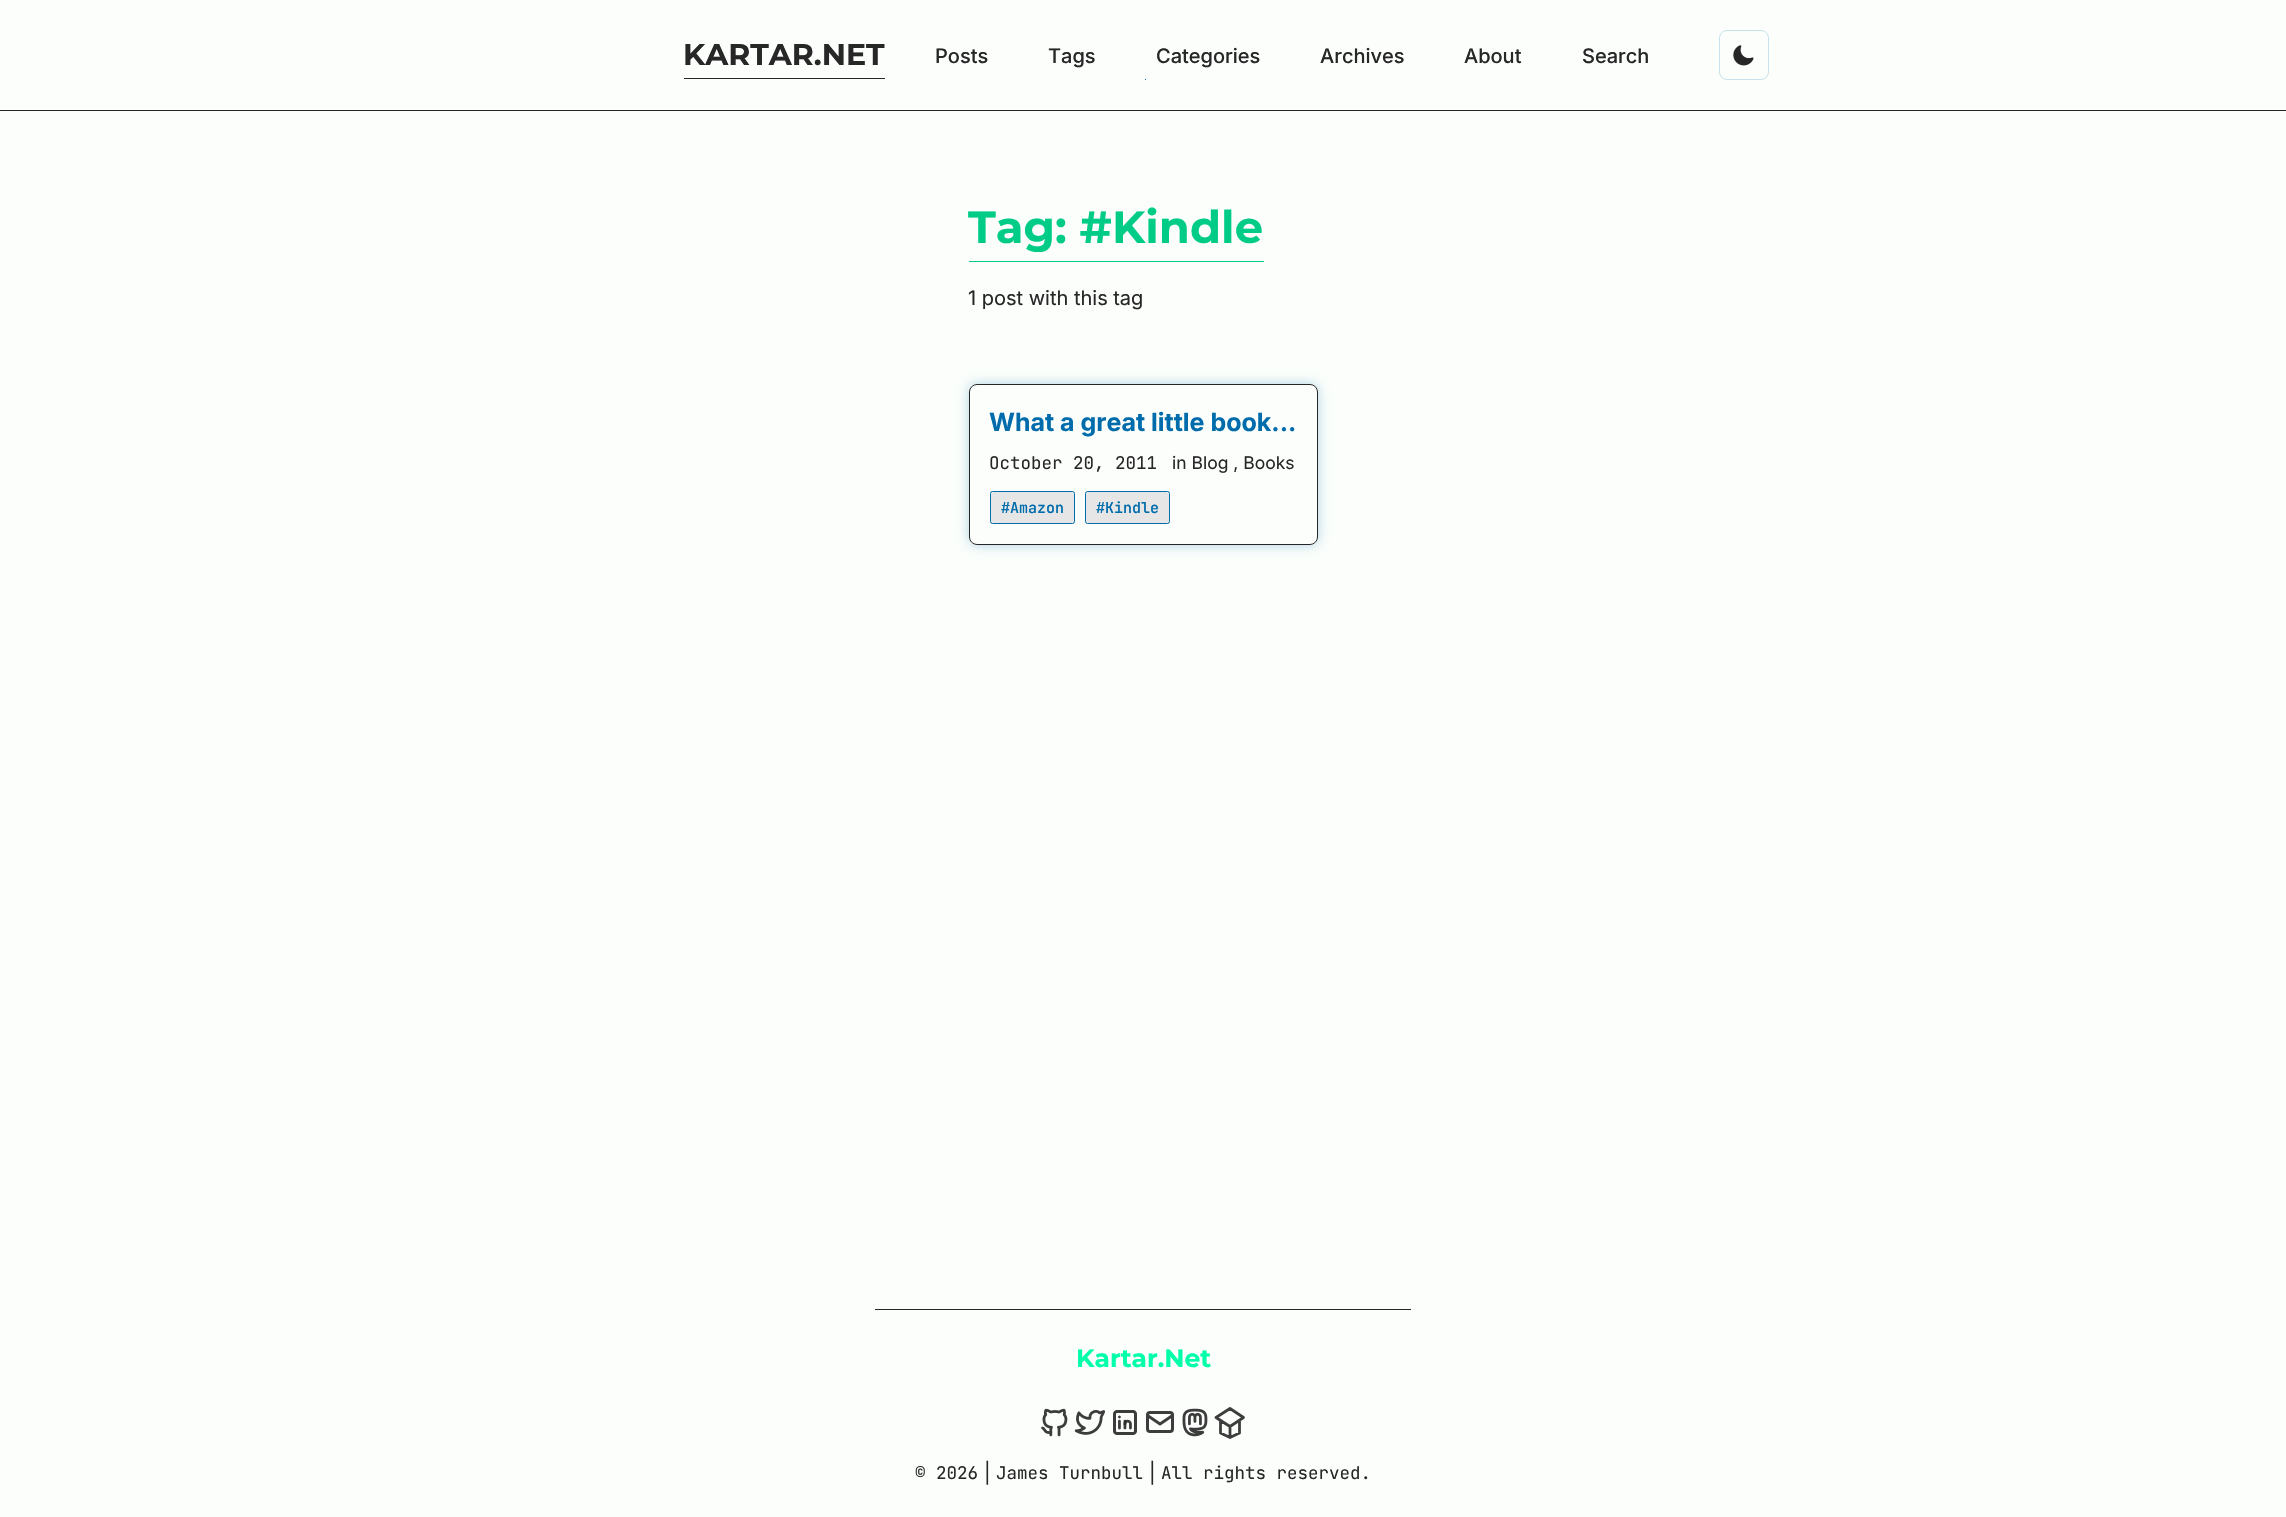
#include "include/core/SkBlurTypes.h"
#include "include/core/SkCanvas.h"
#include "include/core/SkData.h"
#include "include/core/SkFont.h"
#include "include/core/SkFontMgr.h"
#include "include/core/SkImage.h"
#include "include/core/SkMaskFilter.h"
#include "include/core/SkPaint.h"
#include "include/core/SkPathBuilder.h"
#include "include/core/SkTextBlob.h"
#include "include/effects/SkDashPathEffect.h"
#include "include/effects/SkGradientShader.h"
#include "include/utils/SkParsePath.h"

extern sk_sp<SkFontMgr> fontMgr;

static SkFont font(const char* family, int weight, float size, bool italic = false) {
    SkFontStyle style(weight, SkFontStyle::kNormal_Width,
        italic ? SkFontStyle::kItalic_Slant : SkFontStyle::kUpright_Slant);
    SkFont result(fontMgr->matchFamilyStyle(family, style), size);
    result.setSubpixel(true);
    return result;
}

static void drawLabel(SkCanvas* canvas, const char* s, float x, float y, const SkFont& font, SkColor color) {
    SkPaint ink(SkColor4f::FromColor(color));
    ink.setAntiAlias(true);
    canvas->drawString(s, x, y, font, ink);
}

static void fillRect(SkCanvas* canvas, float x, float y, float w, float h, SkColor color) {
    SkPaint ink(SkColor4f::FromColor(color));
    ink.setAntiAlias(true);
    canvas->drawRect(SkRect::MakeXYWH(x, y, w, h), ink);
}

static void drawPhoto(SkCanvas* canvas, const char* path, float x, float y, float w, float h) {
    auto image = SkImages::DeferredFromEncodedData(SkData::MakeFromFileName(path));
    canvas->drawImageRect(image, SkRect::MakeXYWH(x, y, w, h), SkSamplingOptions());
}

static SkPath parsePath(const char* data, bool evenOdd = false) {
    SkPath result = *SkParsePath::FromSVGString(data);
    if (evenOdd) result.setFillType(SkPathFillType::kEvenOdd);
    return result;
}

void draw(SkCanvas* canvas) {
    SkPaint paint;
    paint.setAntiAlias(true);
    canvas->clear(0xFFFBFEFB);
    fillRect(canvas, 0, 110, 2286, 1, 0xFF282728);
    SkFont font1 = font("Montserrat", 700, 30);
    drawLabel(canvas, "KARTAR.NET", 683, 65, font1, 0xFF282728);
    fillRect(canvas, 684, 78, 201, 1, 0xFF282728);
    SkFont font2 = font("Inter", 500, 20);
    drawLabel(canvas, "Posts", 935, 63, font2, 0xFF282728);
    drawLabel(canvas, "Tags", 1048, 63, font2, 0xFF282728);
    drawLabel(canvas, "Categories", 1156, 63, font2, 0xFF282728);
    fillRect(canvas, 1145, 79, 1, 1, 0xFF006CAC);
    drawLabel(canvas, "Archives", 1320, 63, font2, 0xFF282728);
    drawLabel(canvas, "About", 1464, 63, font2, 0xFF282728);
    drawLabel(canvas, "Search", 1582, 63, font2, 0xFF282728);
    paint.setStroke(true);
    paint.setStrokeWidth(1);
    paint.setColor(0xFFC9E1EB);
    canvas->drawRoundRect(SkRect::MakeXYWH(1719.5f, 30.5f, 49, 49), 7.5f, 7.5f, paint);
    drawPhoto(canvas, "assets/img1.png", 1733, 45, 21, 21);
    fillRect(canvas, 969, 261, 295, 1, 0xFF00CC88);
    SkFont font3 = font("Montserrat", 700, 45);
    drawLabel(canvas, "Tag: #Kindle", 968, 243, font3, 0xFF00CC88);
    SkFont font4 = font("Inter", 400, 20);
    drawLabel(canvas, "1 post with this tag", 968, 305, font4, 0xFF282728);
    canvas->save();
    canvas->clipPath(parsePath("M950 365H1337V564H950ZM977 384H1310C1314.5 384 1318 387.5 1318 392V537C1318 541.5 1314.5 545 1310 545H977C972.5 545 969 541.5 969 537V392C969 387.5 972.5 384 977 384Z", true), true);
    paint.setStroke(false);
    paint.setColor(0x4D006CAC);
    paint.setMaskFilter(SkMaskFilter::MakeBlur(kNormal_SkBlurStyle, 6));
    canvas->drawRoundRect(SkRect::MakeXYWH(969, 384, 349, 161), 8, 8, paint);
    paint.setMaskFilter(nullptr);
    canvas->restore();
    paint.setStroke(true);
    paint.setColor(0xFF282728);
    canvas->drawRoundRect(SkRect::MakeXYWH(969.5f, 384.5f, 348, 160), 7.5f, 7.5f, paint);
    SkFont font5 = font("Inter", 700, 25);
    drawLabel(canvas, "What a great little book...", 989, 431, font5, 0xFF006CAC);
    SkFont font6 = font("JetBrains Mono", 400, 17.5f);
    drawLabel(canvas, "October 20, 2011", 989, 469, font6, 0xFF282728);
    SkFont font7 = font("Inter", 400, 17.5f);
    drawLabel(canvas, "in Blog , Books", 1172, 469, font7, 0xFF282728);
    paint.setStroke(false);
    paint.setColor(0xFFE6E6E6);
    canvas->drawRoundRect(SkRect::MakeXYWH(990.5f, 491.5f, 84, 32), 2, 2, paint);
    paint.setStroke(true);
    paint.setColor(0xFF006CAC);
    canvas->drawRoundRect(SkRect::MakeXYWH(990.5f, 491.5f, 84, 32), 2, 2, paint);
    SkFont font8 = font("JetBrains Mono", 500, 15);
    drawLabel(canvas, "#Amazon", 1001, 513, font8, 0xFF006CAC);
    paint.setStroke(false);
    paint.setColor(0xFFE6E6E6);
    canvas->drawRoundRect(SkRect::MakeXYWH(1085.5f, 491.5f, 84, 32), 2, 2, paint);
    paint.setStroke(true);
    paint.setColor(0xFF006CAC);
    canvas->drawRoundRect(SkRect::MakeXYWH(1085.5f, 491.5f, 84, 32), 2, 2, paint);
    drawLabel(canvas, "#Kindle", 1096, 513, font8, 0xFF006CAC);
    fillRect(canvas, 875, 1309, 536, 1, 0xFF282728);
    SkFont font9 = font("Montserrat", 700, 25);
    drawLabel(canvas, "Kartar.Net", 1076, 1367, font9, 0xFF00FFAA);
    drawPhoto(canvas, "assets/img2.png", 1041, 1408, 27, 29);
    drawPhoto(canvas, "assets/img3.png", 1074, 1410, 32, 25);
    drawPhoto(canvas, "assets/img4.png", 1113, 1410, 24, 25);
    paint.setStrokeWidth(3);
    paint.setColor(0xFF3D3D3D);
    canvas->drawRoundRect(SkRect::MakeXYWH(1147.5f, 1412.5f, 25, 19), 2.5f, 2.5f, paint);
    paint.setStrokeWidth(2.8f);
    paint.setStrokeCap(SkPaint::kRound_Cap);
    paint.setStrokeJoin(SkPaint::kRound_Join);
    canvas->drawPath(parsePath("M1147.5 1415.5L1160 1424L1172.5 1415.5"), paint);
    drawPhoto(canvas, "assets/img5.png", 1182, 1408, 26, 29);
    canvas->drawPath(parsePath("M1230 1408.5L1216 1417.5L1230 1426.5L1243.5 1417.5ZM1239.5 1421V1433L1230 1437.5L1220.5 1433V1421M1230 1426.5V1437.5"), paint);
    drawLabel(canvas, "© 2026", 915, 1479, font6, 0xFF282728);
    drawLabel(canvas, "|", 984, 1480, font4, 0xFF282728);
    drawLabel(canvas, "James Turnbull", 996, 1479, font6, 0xFF282728);
    drawLabel(canvas, "|", 1149, 1480, font4, 0xFF282728);
    drawLabel(canvas, "All rights reserved.", 1161, 1479, font6, 0xFF282728);
}
